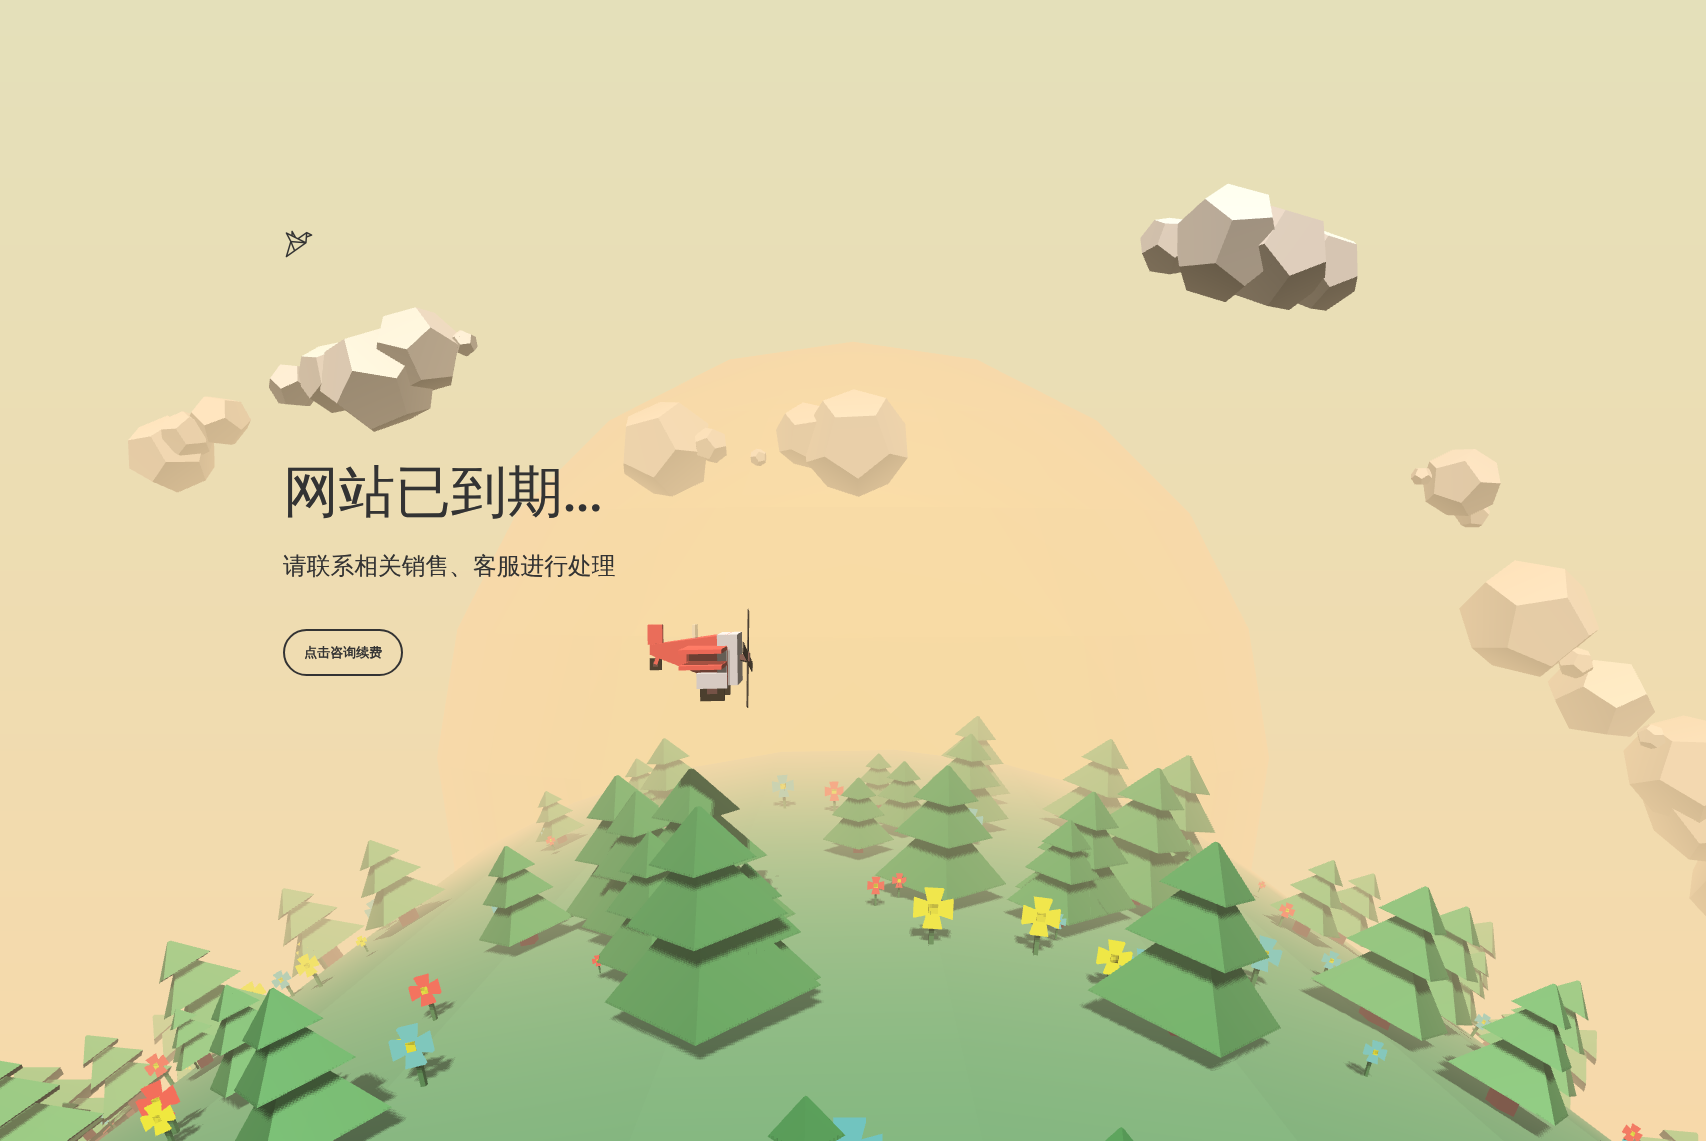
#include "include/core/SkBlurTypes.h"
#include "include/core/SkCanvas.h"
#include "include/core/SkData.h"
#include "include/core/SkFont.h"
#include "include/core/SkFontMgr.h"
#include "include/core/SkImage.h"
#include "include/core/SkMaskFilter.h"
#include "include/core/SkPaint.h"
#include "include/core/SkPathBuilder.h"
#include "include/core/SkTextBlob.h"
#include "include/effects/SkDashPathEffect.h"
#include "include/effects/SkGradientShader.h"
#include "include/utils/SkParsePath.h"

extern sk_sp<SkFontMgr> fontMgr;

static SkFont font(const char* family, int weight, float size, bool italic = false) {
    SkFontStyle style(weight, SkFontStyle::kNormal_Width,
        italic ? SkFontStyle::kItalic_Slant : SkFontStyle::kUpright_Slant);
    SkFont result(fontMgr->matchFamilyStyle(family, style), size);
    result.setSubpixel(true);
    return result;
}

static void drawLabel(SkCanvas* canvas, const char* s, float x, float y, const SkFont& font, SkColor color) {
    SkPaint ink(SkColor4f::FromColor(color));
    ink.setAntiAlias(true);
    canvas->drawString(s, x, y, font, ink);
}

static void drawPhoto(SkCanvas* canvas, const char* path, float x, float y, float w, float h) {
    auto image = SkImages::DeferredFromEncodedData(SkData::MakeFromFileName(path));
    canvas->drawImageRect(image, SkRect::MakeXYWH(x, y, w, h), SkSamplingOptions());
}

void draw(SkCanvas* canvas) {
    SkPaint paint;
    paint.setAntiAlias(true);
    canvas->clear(0xFFFFFFFF);
    {
        const SkColor colors[] = {0xFFE4E0BA, 0xFFF7D9AA};
        const float stops[] = {0, 1};
        const SkPoint ends[] = {{853, 0}, {853, 1141}};
        paint.setShader(SkGradientShader::MakeLinear(ends, colors, stops, 2, SkTileMode::kClamp));
        paint.setAlpha(255);
    }
    canvas->drawRect(SkRect::MakeXYWH(0, 0, 1706, 1141), paint);
    drawPhoto(canvas, "assets/img1.png", 0, 183, 1706, 958);
    drawPhoto(canvas, "assets/img2.png", 285, 230, 28, 28);
    SkFont font1 = font("WenQuanYi Zen Hei", 500, 56);
    drawLabel(canvas, "网站已到期", 283, 511, font1, 0xFF333333);
    SkFont font2 = font("Voltaire", 400, 56);
    drawLabel(canvas, "...", 563, 511, font2, 0xFF333333);
    SkFont font3 = font("WenQuanYi Zen Hei", 500, 23.75f);
    drawLabel(canvas, "请联系相关销售、客服进行处理", 283, 574, font3, 0xFF333333);
    paint.setStroke(true);
    paint.setStrokeWidth(2);
    paint.setShader(nullptr);
    paint.setColor(0xFF333333);
    canvas->drawRoundRect(SkRect::MakeXYWH(284, 630, 118, 45), 22.5f, 22.5f, paint);
    SkFont font4 = font("WenQuanYi Zen Hei", 700, 13);
    drawLabel(canvas, "点击咨询续费", 304, 657, font4, 0xFF333333);
}
